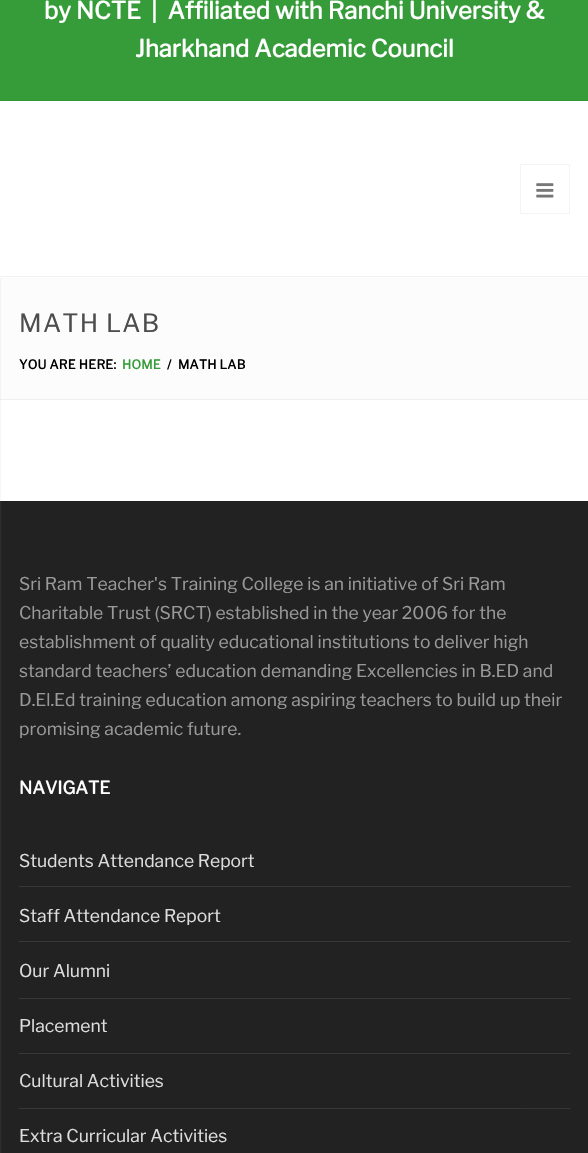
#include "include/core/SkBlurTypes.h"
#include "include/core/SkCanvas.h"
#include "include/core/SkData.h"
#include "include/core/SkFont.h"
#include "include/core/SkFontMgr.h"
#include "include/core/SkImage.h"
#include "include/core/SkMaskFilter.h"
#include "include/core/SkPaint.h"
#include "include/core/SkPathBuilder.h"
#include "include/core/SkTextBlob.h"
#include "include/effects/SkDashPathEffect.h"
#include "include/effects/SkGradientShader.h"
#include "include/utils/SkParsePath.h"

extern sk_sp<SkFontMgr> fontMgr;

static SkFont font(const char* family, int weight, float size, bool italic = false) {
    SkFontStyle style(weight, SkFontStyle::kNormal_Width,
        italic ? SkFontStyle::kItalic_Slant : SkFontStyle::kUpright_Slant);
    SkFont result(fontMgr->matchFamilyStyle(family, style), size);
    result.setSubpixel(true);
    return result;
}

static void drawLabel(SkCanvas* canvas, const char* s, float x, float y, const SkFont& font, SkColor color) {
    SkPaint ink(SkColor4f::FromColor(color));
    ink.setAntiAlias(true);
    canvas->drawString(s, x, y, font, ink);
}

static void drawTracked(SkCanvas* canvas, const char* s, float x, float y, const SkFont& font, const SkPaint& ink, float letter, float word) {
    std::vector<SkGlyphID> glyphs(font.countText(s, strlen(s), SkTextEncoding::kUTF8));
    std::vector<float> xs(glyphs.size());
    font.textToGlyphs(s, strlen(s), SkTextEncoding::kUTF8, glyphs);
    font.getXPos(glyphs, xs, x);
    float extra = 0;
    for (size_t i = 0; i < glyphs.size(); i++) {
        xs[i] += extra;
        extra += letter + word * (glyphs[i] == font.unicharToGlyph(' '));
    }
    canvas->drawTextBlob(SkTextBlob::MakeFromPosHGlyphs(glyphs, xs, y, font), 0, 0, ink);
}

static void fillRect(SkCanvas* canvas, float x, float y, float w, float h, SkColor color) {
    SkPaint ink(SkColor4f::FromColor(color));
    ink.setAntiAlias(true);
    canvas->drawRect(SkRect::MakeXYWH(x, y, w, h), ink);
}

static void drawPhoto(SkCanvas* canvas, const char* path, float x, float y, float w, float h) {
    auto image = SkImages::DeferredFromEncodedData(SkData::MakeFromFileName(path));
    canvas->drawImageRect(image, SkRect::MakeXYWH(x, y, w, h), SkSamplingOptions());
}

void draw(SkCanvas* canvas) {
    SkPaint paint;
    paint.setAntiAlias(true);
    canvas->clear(0xFFFFFFFF);
    fillRect(canvas, 0, 278, 588, 121, 0xFFFCFCFC);
    fillRect(canvas, 0, 399, 588, 1, 0xFFEFEFEF);
    fillRect(canvas, 0, 502, 588, 651, 0xFF222222);
    fillRect(canvas, 0, 501, 588, 1, 0xFF202020);
    paint.setColor(0x1A999999);
    paint.setMaskFilter(SkMaskFilter::MakeBlur(kNormal_SkBlurStyle, 0.5f));
    canvas->drawRect(SkRect::MakeXYWH(-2, 0, 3, 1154), paint);
    paint.setMaskFilter(nullptr);
    fillRect(canvas, 0, 0, 588, 100, 0xFF369C39);
    fillRect(canvas, 0, 100, 588, 1, 0xFF339436);
    SkFont font1 = font("Libre Franklin", 700, 23.75f);
    drawLabel(canvas, "by NCTE  |  Affiliated with Ranchi University &", 44, 19, font1, 0xFFFFFFFF);
    drawLabel(canvas, "Jharkhand Academic Council", 135, 57, font1, 0xFFFFFFFF);
    fillRect(canvas, 0, 101, 1, 177, 0xFFFFFFFF);
    fillRect(canvas, 0, 276, 588, 1, 0xFFF2F2F2);
    paint.setStroke(true);
    paint.setStrokeWidth(1);
    paint.setColor(0xFFF6F3F3);
    canvas->drawRect(SkRect::MakeXYWH(520.5f, 164.5f, 49, 49), paint);
    drawPhoto(canvas, "assets/img1.png", 536, 183, 18, 15);
    SkFont font2 = font("Libre Franklin", 100, 25);
    paint.setStroke(false);
    paint.setColor(0xFF4D4D4D);
    drawTracked(canvas, "MATH LAB", 19, 332, font2, paint, 1.25f, 0);
    SkFont font3 = font("Libre Franklin", 700, 12.5f);
    paint.setColor(0xFF000000);
    drawTracked(canvas, "YOU ARE HERE:", 19, 369, font3, paint, 0.25f, 0);
    paint.setColor(0xFF369C39);
    drawTracked(canvas, "HOME", 122, 369, font3, paint, 0.25f, 0);
    paint.setColor(0xFF000000);
    drawTracked(canvas, "/", 167, 369, font3, paint, 0.25f, 0);
    drawTracked(canvas, "MATH LAB", 178, 369, font3, paint, 0.25f, 0);
    SkFont font4 = font("Libre Franklin", 100, 17.5f);
    drawLabel(canvas, "Sri Ram Teacher's Training College is an initiative of Sri Ram", 19, 590, font4, 0xFF999999);
    drawLabel(canvas, "Charitable Trust (SRCT) established in the year 2006 for the", 19, 619, font4, 0xFF999999);
    drawLabel(canvas, "establishment of quality educational institutions to deliver high", 19, 648, font4, 0xFF999999);
    drawLabel(canvas, "standard teachers’ education demanding Excellencies in B.ED and", 19, 677, font4, 0xFF999999);
    drawLabel(canvas, "D.El.Ed training education among aspiring teachers to build up their", 19, 706, font4, 0xFF999999);
    drawLabel(canvas, "promising academic future.", 19, 735, font4, 0xFF999999);
    SkFont font5 = font("Libre Franklin", 700, 17.5f);
    drawLabel(canvas, "NAVIGATE", 19, 794, font5, 0xFFFFFFFF);
    fillRect(canvas, 19, 886, 551, 1, 0xFF383838);
    drawLabel(canvas, "Students Attendance Report", 19, 867, font4, 0xFFDDDDDD);
    fillRect(canvas, 19, 941, 551, 1, 0xFF383838);
    drawLabel(canvas, "Staff Attendance Report", 19, 922, font4, 0xFFDDDDDD);
    fillRect(canvas, 19, 998, 551, 1, 0xFF383838);
    drawLabel(canvas, "Our Alumni", 19, 977, font4, 0xFFDDDDDD);
    fillRect(canvas, 19, 1053, 551, 1, 0xFF383838);
    drawLabel(canvas, "Placement", 19, 1032, font4, 0xFFDDDDDD);
    fillRect(canvas, 19, 1108, 551, 1, 0xFF383838);
    drawLabel(canvas, "Cultural Activities", 19, 1087, font4, 0xFFDDDDDD);
    drawLabel(canvas, "Extra Curricular Activities", 19, 1142, font4, 0xFFDDDDDD);
    fillRect(canvas, 521, 1108, 44, 1, 0x0D000000);
}
